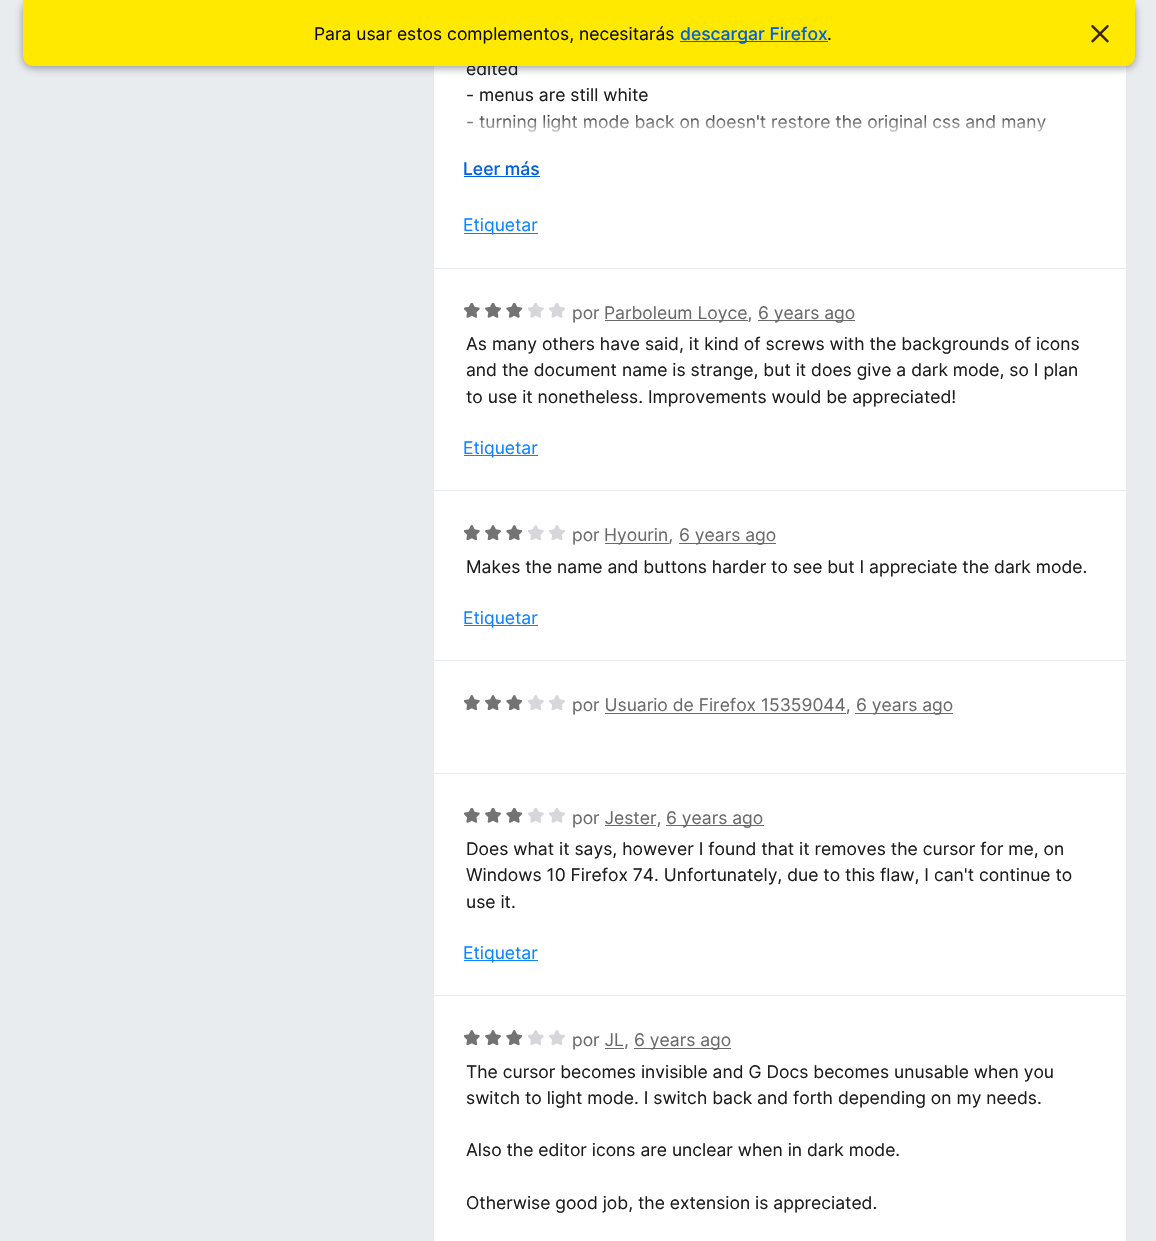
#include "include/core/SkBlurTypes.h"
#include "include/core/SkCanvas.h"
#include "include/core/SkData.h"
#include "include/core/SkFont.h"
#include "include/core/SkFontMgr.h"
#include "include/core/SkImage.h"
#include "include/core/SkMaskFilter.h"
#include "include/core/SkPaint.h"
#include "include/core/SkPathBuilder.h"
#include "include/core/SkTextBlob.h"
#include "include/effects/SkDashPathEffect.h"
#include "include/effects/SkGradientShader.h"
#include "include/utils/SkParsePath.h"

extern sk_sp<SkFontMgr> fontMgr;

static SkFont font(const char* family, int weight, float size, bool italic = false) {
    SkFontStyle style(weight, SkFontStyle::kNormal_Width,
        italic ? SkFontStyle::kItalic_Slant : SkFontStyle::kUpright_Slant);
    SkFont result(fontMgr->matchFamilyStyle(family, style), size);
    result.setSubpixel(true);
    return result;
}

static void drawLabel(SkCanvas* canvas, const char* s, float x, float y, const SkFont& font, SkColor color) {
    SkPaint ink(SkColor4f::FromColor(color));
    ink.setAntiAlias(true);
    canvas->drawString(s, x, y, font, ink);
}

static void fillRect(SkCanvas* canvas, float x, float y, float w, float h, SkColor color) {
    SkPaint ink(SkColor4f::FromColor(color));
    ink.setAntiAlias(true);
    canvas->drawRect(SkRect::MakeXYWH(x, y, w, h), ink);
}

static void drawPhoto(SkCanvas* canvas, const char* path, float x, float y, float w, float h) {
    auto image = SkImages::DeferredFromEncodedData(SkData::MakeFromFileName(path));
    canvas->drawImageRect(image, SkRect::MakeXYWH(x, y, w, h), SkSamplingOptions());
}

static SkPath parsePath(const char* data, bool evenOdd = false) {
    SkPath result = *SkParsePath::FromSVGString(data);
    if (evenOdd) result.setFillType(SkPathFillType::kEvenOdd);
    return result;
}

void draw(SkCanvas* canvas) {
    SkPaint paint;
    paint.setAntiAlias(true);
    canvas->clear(0xFFE9ECEF);
    fillRect(canvas, 434, 65, 692, 203, 0xFFFFFFFF);
    paint.setColor(0x80343A40);
    paint.setMaskFilter(SkMaskFilter::MakeBlur(kNormal_SkBlurStyle, 4.5f));
    canvas->drawRoundRect(SkRect::MakeXYWH(23, 1, 1112, 67), 10, 10, paint);
    paint.setMaskFilter(nullptr);
    SkFont font1 = font("Inter", 400, 17.5f);
    drawLabel(canvas, "edited", 466, 75, font1, 0xFF1D1D1D);
    paint.setColor(0xFFFFE900);
    canvas->drawPath(parsePath("M23 0H1135V56C1135 61.5 1130.5 66 1125 66H33C27.5 66 23 61.5 23 56Z"), paint);
    drawLabel(canvas, "Para usar estos complementos, necesitarás", 314, 40, font1, 0xFF0C0C0D);
    fillRect(canvas, 680, 41, 148, 1, 0xFF0060DF);
    SkFont font2 = font("Inter", 500, 17.5f);
    drawLabel(canvas, "descargar Firefox", 680, 40, font2, 0xFF0060DF);
    drawLabel(canvas, ".", 827, 40, font1, 0xFF0C0C0D);
    drawPhoto(canvas, "assets/img1.png", 1091, 25, 18, 18);
    drawLabel(canvas, "- menus are still white", 466, 101, font1, 0xFF1D1D1D);
    drawLabel(canvas, "- turning light mode back on doesn't restore the original css and many", 466, 128, font1, 0xFF1D1D1D);
    {
        const SkColor colors[] = {0x00FFFFFF, 0xFFFFFFFF};
        const float stops[] = {0, 1};
        const SkPoint ends[] = {{781, 112}, {781, 138}};
        paint.setShader(SkGradientShader::MakeLinear(ends, colors, stops, 2, SkTileMode::kClamp));
        paint.setAlpha(255);
    }
    canvas->drawRect(SkRect::MakeXYWH(466, 115, 580, 17), paint);
    drawLabel(canvas, "Leer más", 463, 175, font2, 0xFF0060DF);
    fillRect(canvas, 464, 176, 76, 1, 0xFF0060DF);
    fillRect(canvas, 464, 233, 74, 1, 0xFF0A84FF);
    drawLabel(canvas, "Etiquetar", 463, 231, font1, 0xFF0A84FF);
    fillRect(canvas, 434, 269, 692, 221, 0xFFFFFFFF);
    drawPhoto(canvas, "assets/img2.png", 464, 303, 16, 15);
    drawPhoto(canvas, "assets/img3.png", 485, 303, 16, 15);
    drawPhoto(canvas, "assets/img4.png", 506, 303, 17, 15);
    drawPhoto(canvas, "assets/img5.png", 528, 303, 16, 15);
    drawPhoto(canvas, "assets/img6.png", 549, 303, 16, 15);
    drawLabel(canvas, "por", 572, 319, font1, 0xFF6A6A6A);
    fillRect(canvas, 605, 320, 143, 1, 0xFF6A6A6A);
    drawLabel(canvas, "Parboleum Loyce,", 604, 319, font1, 0xFF6A6A6A);
    fillRect(canvas, 758, 320, 97, 1, 0xFF6A6A6A);
    drawLabel(canvas, "6 years ago", 758, 319, font1, 0xFF6A6A6A);
    drawLabel(canvas, "As many others have said, it kind of screws with the backgrounds of icons", 466, 350, font1, 0xFF1D1D1D);
    drawLabel(canvas, "and the document name is strange, but it does give a dark mode, so I plan", 466, 376, font1, 0xFF1D1D1D);
    drawLabel(canvas, "to use it nonetheless. Improvements would be appreciated!", 466, 403, font1, 0xFF1D1D1D);
    fillRect(canvas, 464, 455, 74, 1, 0xFF0A84FF);
    drawLabel(canvas, "Etiquetar", 463, 454, font1, 0xFF0A84FF);
    fillRect(canvas, 434, 491, 692, 169, 0xFFFFFFFF);
    drawPhoto(canvas, "assets/img7.png", 464, 525, 16, 15);
    drawPhoto(canvas, "assets/img8.png", 485, 525, 16, 15);
    drawPhoto(canvas, "assets/img9.png", 506, 525, 17, 15);
    drawPhoto(canvas, "assets/img10.png", 528, 525, 16, 15);
    drawPhoto(canvas, "assets/img11.png", 549, 525, 16, 15);
    drawLabel(canvas, "por", 572, 541, font1, 0xFF6A6A6A);
    fillRect(canvas, 605, 543, 64, 1, 0xFF6A6A6A);
    drawLabel(canvas, "Hyourin,", 604, 541, font1, 0xFF6A6A6A);
    fillRect(canvas, 679, 543, 97, 1, 0xFF6A6A6A);
    drawLabel(canvas, "6 years ago", 679, 541, font1, 0xFF6A6A6A);
    drawLabel(canvas, "Makes the name and buttons harder to see but I appreciate the dark mode.", 466, 573, font1, 0xFF1D1D1D);
    fillRect(canvas, 464, 625, 74, 1, 0xFF0A84FF);
    drawLabel(canvas, "Etiquetar", 463, 624, font1, 0xFF0A84FF);
    fillRect(canvas, 434, 661, 692, 112, 0xFFFFFFFF);
    drawPhoto(canvas, "assets/img7.png", 464, 695, 16, 15);
    drawPhoto(canvas, "assets/img8.png", 485, 695, 16, 15);
    drawPhoto(canvas, "assets/img9.png", 506, 695, 17, 15);
    drawPhoto(canvas, "assets/img10.png", 528, 695, 16, 15);
    drawPhoto(canvas, "assets/img11.png", 549, 695, 16, 15);
    drawLabel(canvas, "por Usuario de Firefox 15359044,", 572, 711, font1, 0xFF6A6A6A);
    fillRect(canvas, 855, 713, 98, 1, 0xFF6A6A6A);
    drawLabel(canvas, "6 years ago", 856, 711, font1, 0xFF6A6A6A);
    fillRect(canvas, 605, 713, 241, 1, 0xFF6A6A6A);
    fillRect(canvas, 434, 774, 692, 221, 0xFFFFFFFF);
    drawPhoto(canvas, "assets/img2.png", 464, 808, 16, 15);
    drawPhoto(canvas, "assets/img3.png", 485, 808, 16, 15);
    drawPhoto(canvas, "assets/img4.png", 506, 808, 17, 15);
    drawPhoto(canvas, "assets/img5.png", 528, 808, 16, 15);
    drawPhoto(canvas, "assets/img6.png", 549, 808, 16, 15);
    drawLabel(canvas, "por Jester,", 572, 824, font1, 0xFF6A6A6A);
    fillRect(canvas, 666, 825, 98, 1, 0xFF6A6A6A);
    drawLabel(canvas, "6 years ago", 666, 824, font1, 0xFF6A6A6A);
    fillRect(canvas, 605, 825, 51, 1, 0xFF6A6A6A);
    drawLabel(canvas, "Does what it says, however I found that it removes the cursor for me, on", 466, 855, font1, 0xFF1D1D1D);
    drawLabel(canvas, "Windows 10 Firefox 74. Unfortunately, due to this flaw, I can't continue to", 466, 881, font1, 0xFF1D1D1D);
    drawLabel(canvas, "use it.", 466, 908, font1, 0xFF1D1D1D);
    fillRect(canvas, 464, 960, 74, 1, 0xFF0A84FF);
    drawLabel(canvas, "Etiquetar", 463, 959, font1, 0xFF0A84FF);
    fillRect(canvas, 434, 996, 692, 245, 0xFFFFFFFF);
    drawPhoto(canvas, "assets/img7.png", 464, 1030, 16, 15);
    drawPhoto(canvas, "assets/img8.png", 485, 1030, 16, 15);
    drawPhoto(canvas, "assets/img9.png", 506, 1030, 17, 15);
    drawPhoto(canvas, "assets/img10.png", 528, 1030, 16, 15);
    drawPhoto(canvas, "assets/img11.png", 549, 1030, 16, 15);
    drawLabel(canvas, "por JL,", 572, 1046, font1, 0xFF6A6A6A);
    fillRect(canvas, 634, 1048, 97, 1, 0xFF6A6A6A);
    drawLabel(canvas, "6 years ago", 634, 1046, font1, 0xFF6A6A6A);
    fillRect(canvas, 605, 1048, 19, 1, 0xFF6A6A6A);
    drawLabel(canvas, "The cursor becomes invisible and G Docs becomes unusable when you", 466, 1078, font1, 0xFF1D1D1D);
    drawLabel(canvas, "switch to light mode. I switch back and forth depending on my needs.", 466, 1104, font1, 0xFF1D1D1D);
    drawLabel(canvas, "Also the editor icons are unclear when in dark mode.", 466, 1156, font1, 0xFF1D1D1D);
    drawLabel(canvas, "Otherwise good job, the extension is appreciated.", 466, 1209, font1, 0xFF1D1D1D);
}
